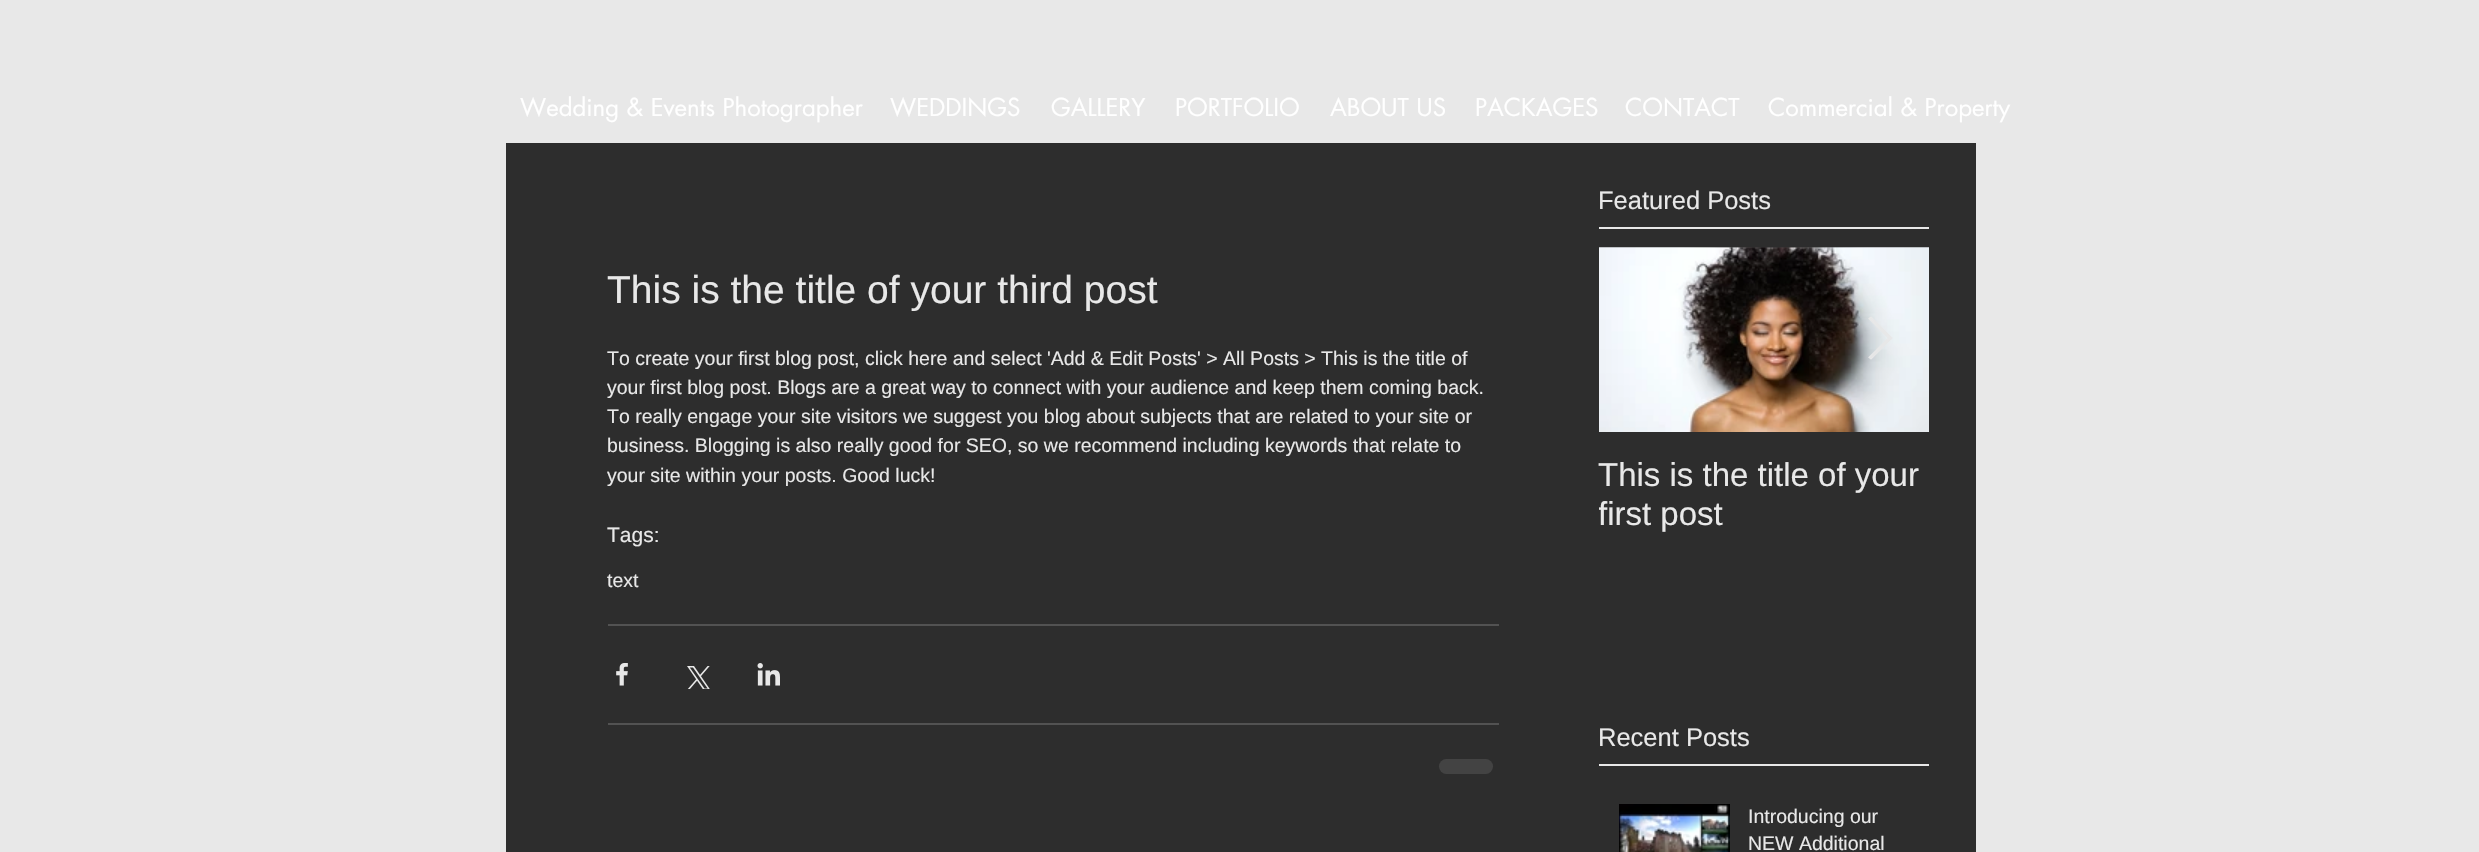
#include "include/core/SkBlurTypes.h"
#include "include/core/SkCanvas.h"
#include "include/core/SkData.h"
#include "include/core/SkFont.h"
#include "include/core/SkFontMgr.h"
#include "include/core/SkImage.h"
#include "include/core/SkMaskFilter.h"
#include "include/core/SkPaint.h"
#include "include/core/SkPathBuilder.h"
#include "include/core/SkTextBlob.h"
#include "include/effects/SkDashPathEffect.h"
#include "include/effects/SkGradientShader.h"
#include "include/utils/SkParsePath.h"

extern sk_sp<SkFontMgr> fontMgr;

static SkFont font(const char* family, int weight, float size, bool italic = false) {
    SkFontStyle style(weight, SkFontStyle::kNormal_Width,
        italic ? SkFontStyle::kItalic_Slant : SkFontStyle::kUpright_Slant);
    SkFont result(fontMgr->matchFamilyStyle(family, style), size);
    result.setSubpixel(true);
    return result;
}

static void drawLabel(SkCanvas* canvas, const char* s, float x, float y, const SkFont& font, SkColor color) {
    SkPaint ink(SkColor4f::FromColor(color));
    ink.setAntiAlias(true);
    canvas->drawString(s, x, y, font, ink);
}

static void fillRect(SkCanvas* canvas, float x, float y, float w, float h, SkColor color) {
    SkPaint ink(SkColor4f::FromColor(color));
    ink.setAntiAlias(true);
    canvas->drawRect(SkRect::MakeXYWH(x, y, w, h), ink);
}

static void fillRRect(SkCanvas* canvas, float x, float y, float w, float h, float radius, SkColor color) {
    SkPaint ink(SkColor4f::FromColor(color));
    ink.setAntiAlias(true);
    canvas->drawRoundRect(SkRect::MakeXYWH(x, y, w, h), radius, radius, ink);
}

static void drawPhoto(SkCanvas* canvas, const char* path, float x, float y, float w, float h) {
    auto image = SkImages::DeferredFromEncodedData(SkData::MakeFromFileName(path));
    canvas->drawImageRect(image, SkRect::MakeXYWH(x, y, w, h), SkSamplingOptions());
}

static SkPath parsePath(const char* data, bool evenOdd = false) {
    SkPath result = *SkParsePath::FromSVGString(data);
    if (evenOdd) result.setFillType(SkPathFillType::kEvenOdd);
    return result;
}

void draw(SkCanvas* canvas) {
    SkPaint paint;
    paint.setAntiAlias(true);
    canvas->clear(0xFFE8E8E8);
    SkFont font1 = font("futura", 400, 24);
    drawLabel(canvas, "Wedding & Events Photographer", 520, 116, font1, 0xFFFFFFFF);
    drawLabel(canvas, "WEDDINGS", 890, 116, font1, 0xFFFFFFFF);
    drawLabel(canvas, "GALLERY", 1051, 116, font1, 0xFFFFFFFF);
    drawLabel(canvas, "PORTFOLIO", 1175, 116, font1, 0xFFFFFFFF);
    drawLabel(canvas, "ABOUT US", 1330, 116, font1, 0xFFFFFFFF);
    drawLabel(canvas, "PACKAGES", 1475, 116, font1, 0xFFFFFFFF);
    drawLabel(canvas, "CONTACT", 1625, 116, font1, 0xFFFFFFFF);
    drawLabel(canvas, "Commercial & Property", 1768, 116, font1, 0xFFFFFFFF);
    fillRect(canvas, 506, 143, 1470, 709, 0xFF2D2D2D);
    SkFont font2 = font("Liberation Sans", 400, 25.5f);
    drawLabel(canvas, "Featured Posts", 1598, 209, font2, 0xFFE8E8E8);
    fillRect(canvas, 1599, 227, 330, 2, 0xFFE8E8E8);
    SkFont font3 = font("Liberation Sans", 400, 39);
    drawLabel(canvas, "This is the title of your third post", 607, 303, font3, 0xFFE8E8E8);
    SkFont font4 = font("Liberation Sans", 400, 19.5f);
    drawLabel(canvas, "To create your first blog post, click here and select 'Add & Edit Posts' > All Posts > This is the title of", 607, 365, font4, 0xFFE8E8E8);
    drawLabel(canvas, "your first blog post. Blogs are a great way to connect with your audience and keep them coming back.", 607, 394, font4, 0xFFE8E8E8);
    drawLabel(canvas, "To really engage your site visitors we suggest you blog about subjects that are related to your site or", 607, 423, font4, 0xFFE8E8E8);
    drawLabel(canvas, "business. Blogging is also really good for SEO, so we recommend including keywords that relate to", 607, 452, font4, 0xFFE8E8E8);
    drawLabel(canvas, "your site within your posts. Good luck!", 607, 482, font4, 0xFFE8E8E8);
    SkFont font5 = font("Liberation Sans", 400, 21);
    drawLabel(canvas, "Tags:", 607, 542, font5, 0xFFE8E8E8);
    drawLabel(canvas, "text", 607, 587, font4, 0xFFE8E8E8);
    fillRect(canvas, 608, 624, 891, 2, 0xFF525252);
    drawPhoto(canvas, "assets/img1.png", 616, 663, 12, 23);
    drawPhoto(canvas, "assets/img2.png", 687, 666, 23, 23);
    drawPhoto(canvas, "assets/img3.png", 757, 663, 23, 23);
    fillRect(canvas, 608, 723, 891, 2, 0xFF525252);
    fillRRect(canvas, 1439, 759, 54, 15, 7.5f, 0xFF434343);
    drawPhoto(canvas, "assets/img4.png", 1599, 247, 330, 1);
    drawPhoto(canvas, "assets/img5.png", 1599, 247, 330, 185);
    paint.setColor(0xE6E8E8E8);
    canvas->drawPath(parsePath("M1869 319L1871 317L1892 338L1871 359L1869 357L1889 338Z"), paint);
    paint.setStroke(true);
    paint.setStrokeWidth(1.2f);
    canvas->drawPath(parsePath("M1869 318.5L1871 317L1892 338L1871 359L1869 357.5L1888.5 338Z"), paint);
    SkFont font6 = font("Liberation Sans", 400, 33);
    drawLabel(canvas, "This is the title of your", 1598, 486, font6, 0xFFE8E8E8);
    canvas->save();
    canvas->clipRect(SkRect::MakeXYWH(1599, 456, 330, 78));
    drawLabel(canvas, "first post", 1598, 525, font6, 0xFFE8E8E8);
    canvas->restore();
    drawLabel(canvas, "Recent Posts", 1598, 746, font2, 0xFFE8E8E8);
    fillRect(canvas, 1599, 764, 330, 2, 0xFFE8E8E8);
    drawPhoto(canvas, "assets/img6.png", 1619, 804, 111, 48);
    drawLabel(canvas, "Introducing our", 1748, 823, font4, 0xFFE8E8E8);
    drawLabel(canvas, "NEW Additional", 1748, 850, font4, 0xFFE8E8E8);
}
